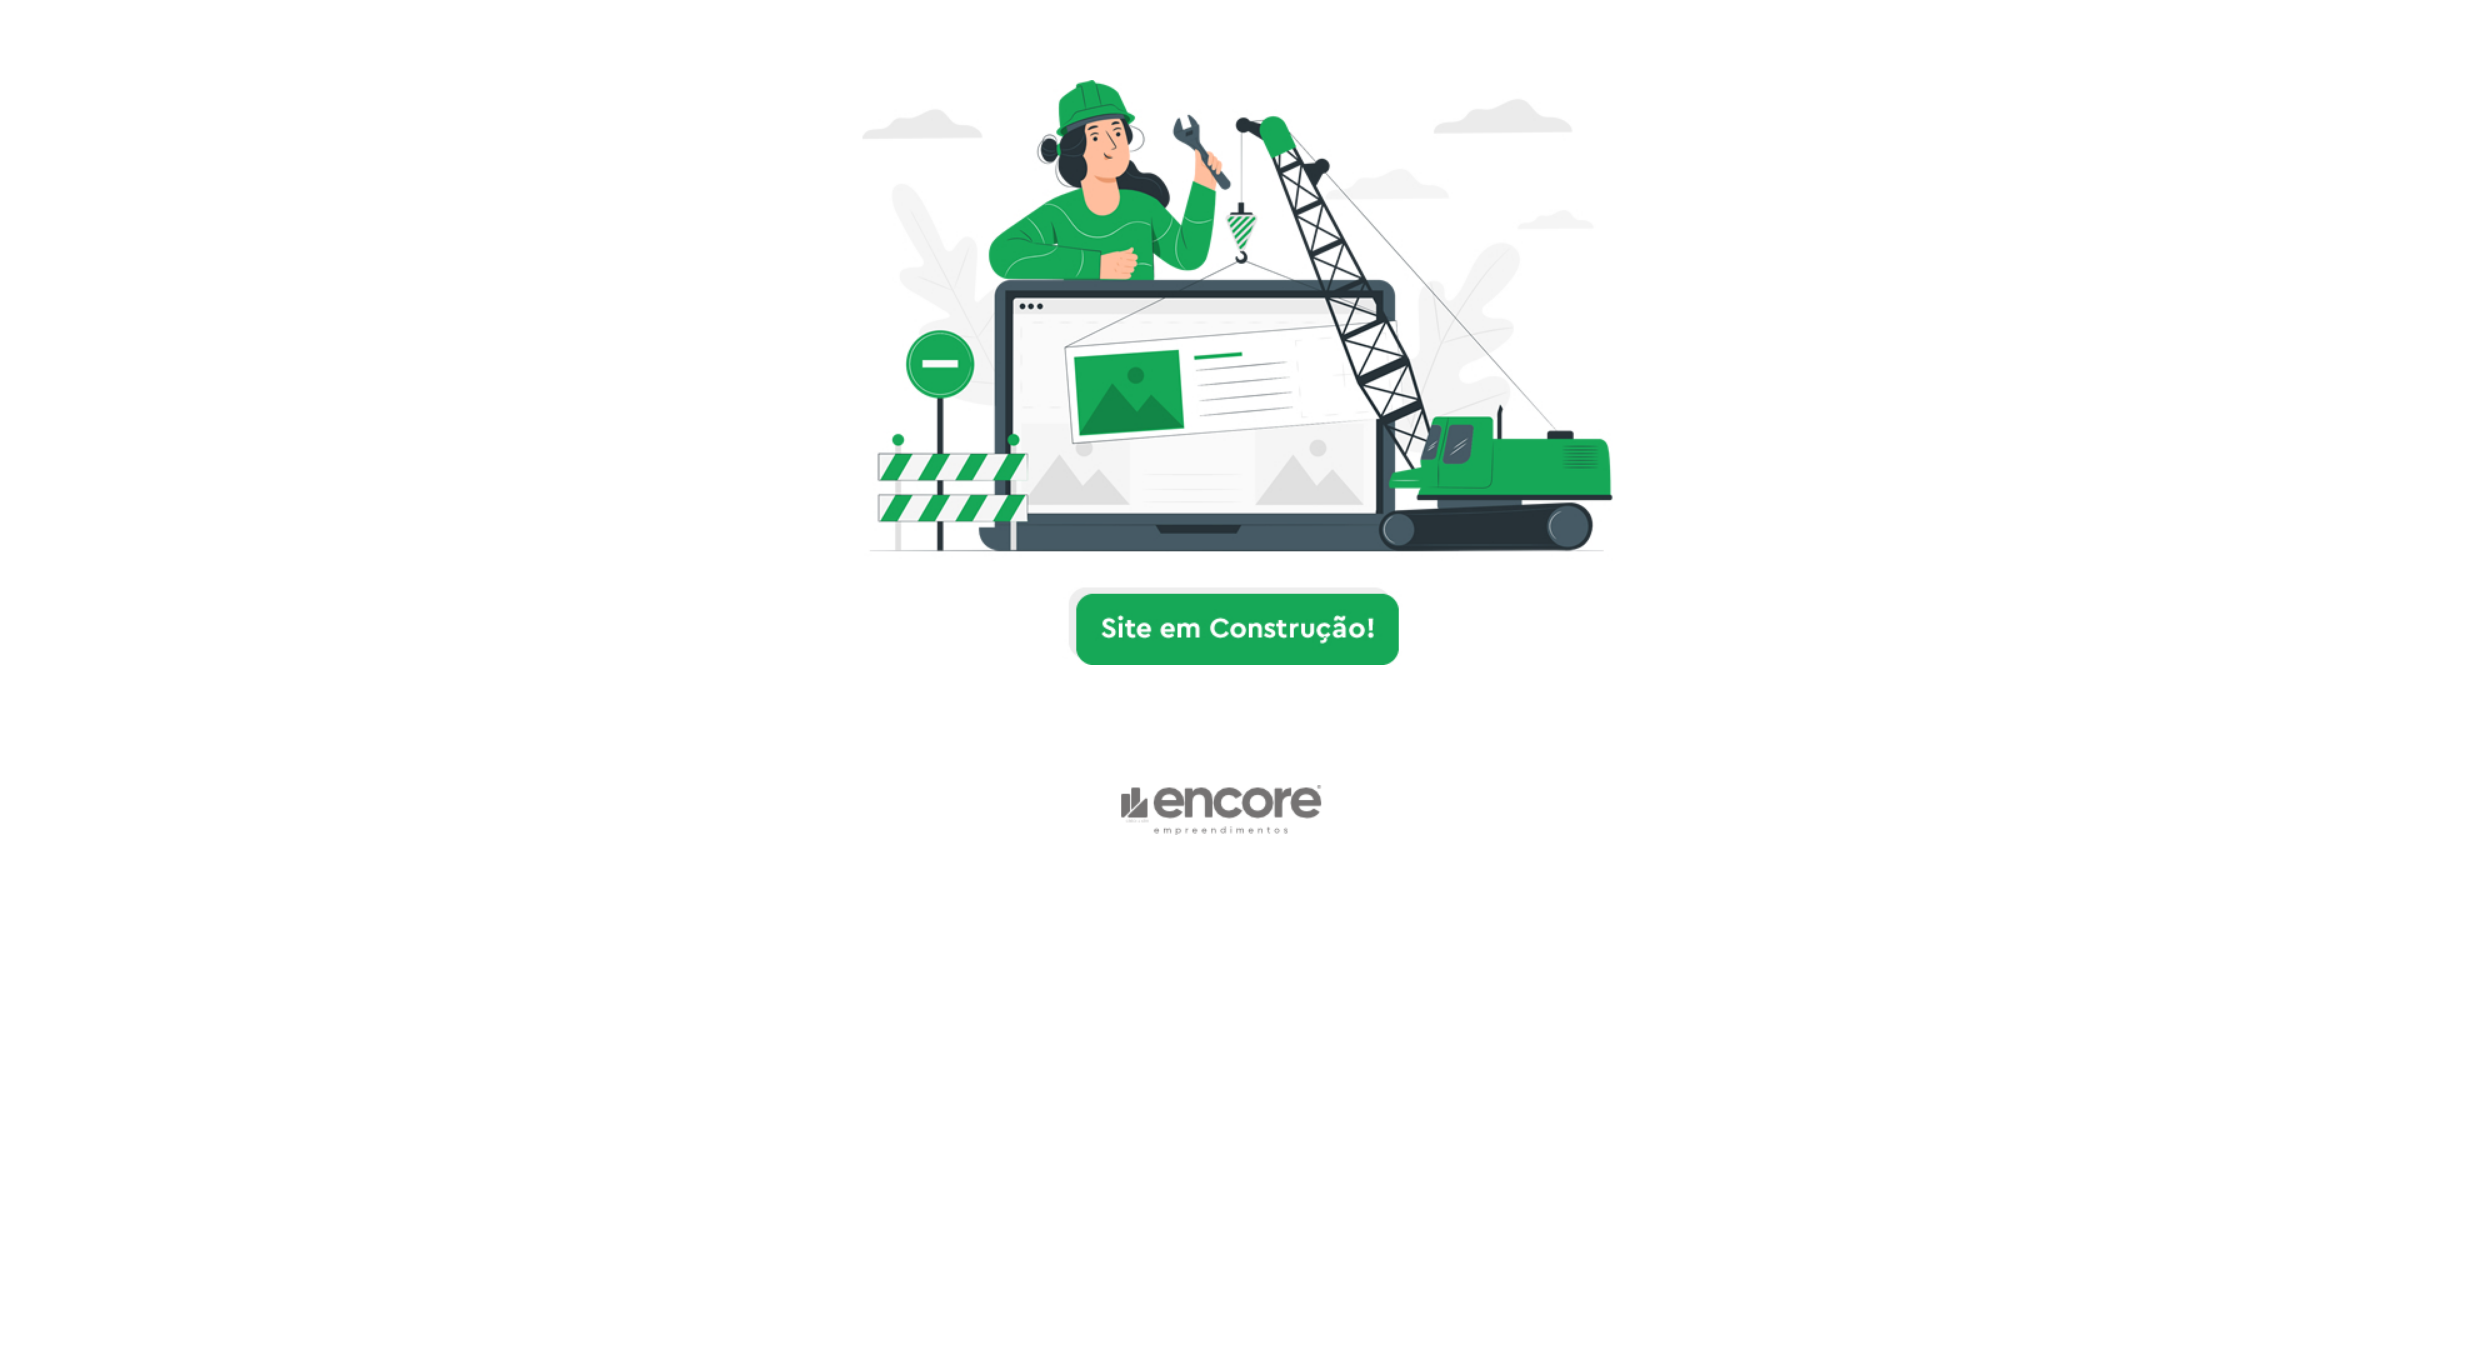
#include "include/core/SkBlurTypes.h"
#include "include/core/SkCanvas.h"
#include "include/core/SkData.h"
#include "include/core/SkFont.h"
#include "include/core/SkFontMgr.h"
#include "include/core/SkImage.h"
#include "include/core/SkMaskFilter.h"
#include "include/core/SkPaint.h"
#include "include/core/SkPathBuilder.h"
#include "include/core/SkTextBlob.h"
#include "include/effects/SkDashPathEffect.h"
#include "include/effects/SkGradientShader.h"
#include "include/utils/SkParsePath.h"

extern sk_sp<SkFontMgr> fontMgr;

static void drawPhoto(SkCanvas* canvas, const char* path, float x, float y, float w, float h) {
    auto image = SkImages::DeferredFromEncodedData(SkData::MakeFromFileName(path));
    canvas->drawImageRect(image, SkRect::MakeXYWH(x, y, w, h), SkSamplingOptions());
}

void draw(SkCanvas* canvas) {
    SkPaint paint;
    paint.setAntiAlias(true);
    canvas->clear(0xFFFFFFFF);
    drawPhoto(canvas, "assets/img1.png", 862, 80, 751, 585);
    drawPhoto(canvas, "assets/img2.png", 1121, 785, 201, 50);
}
